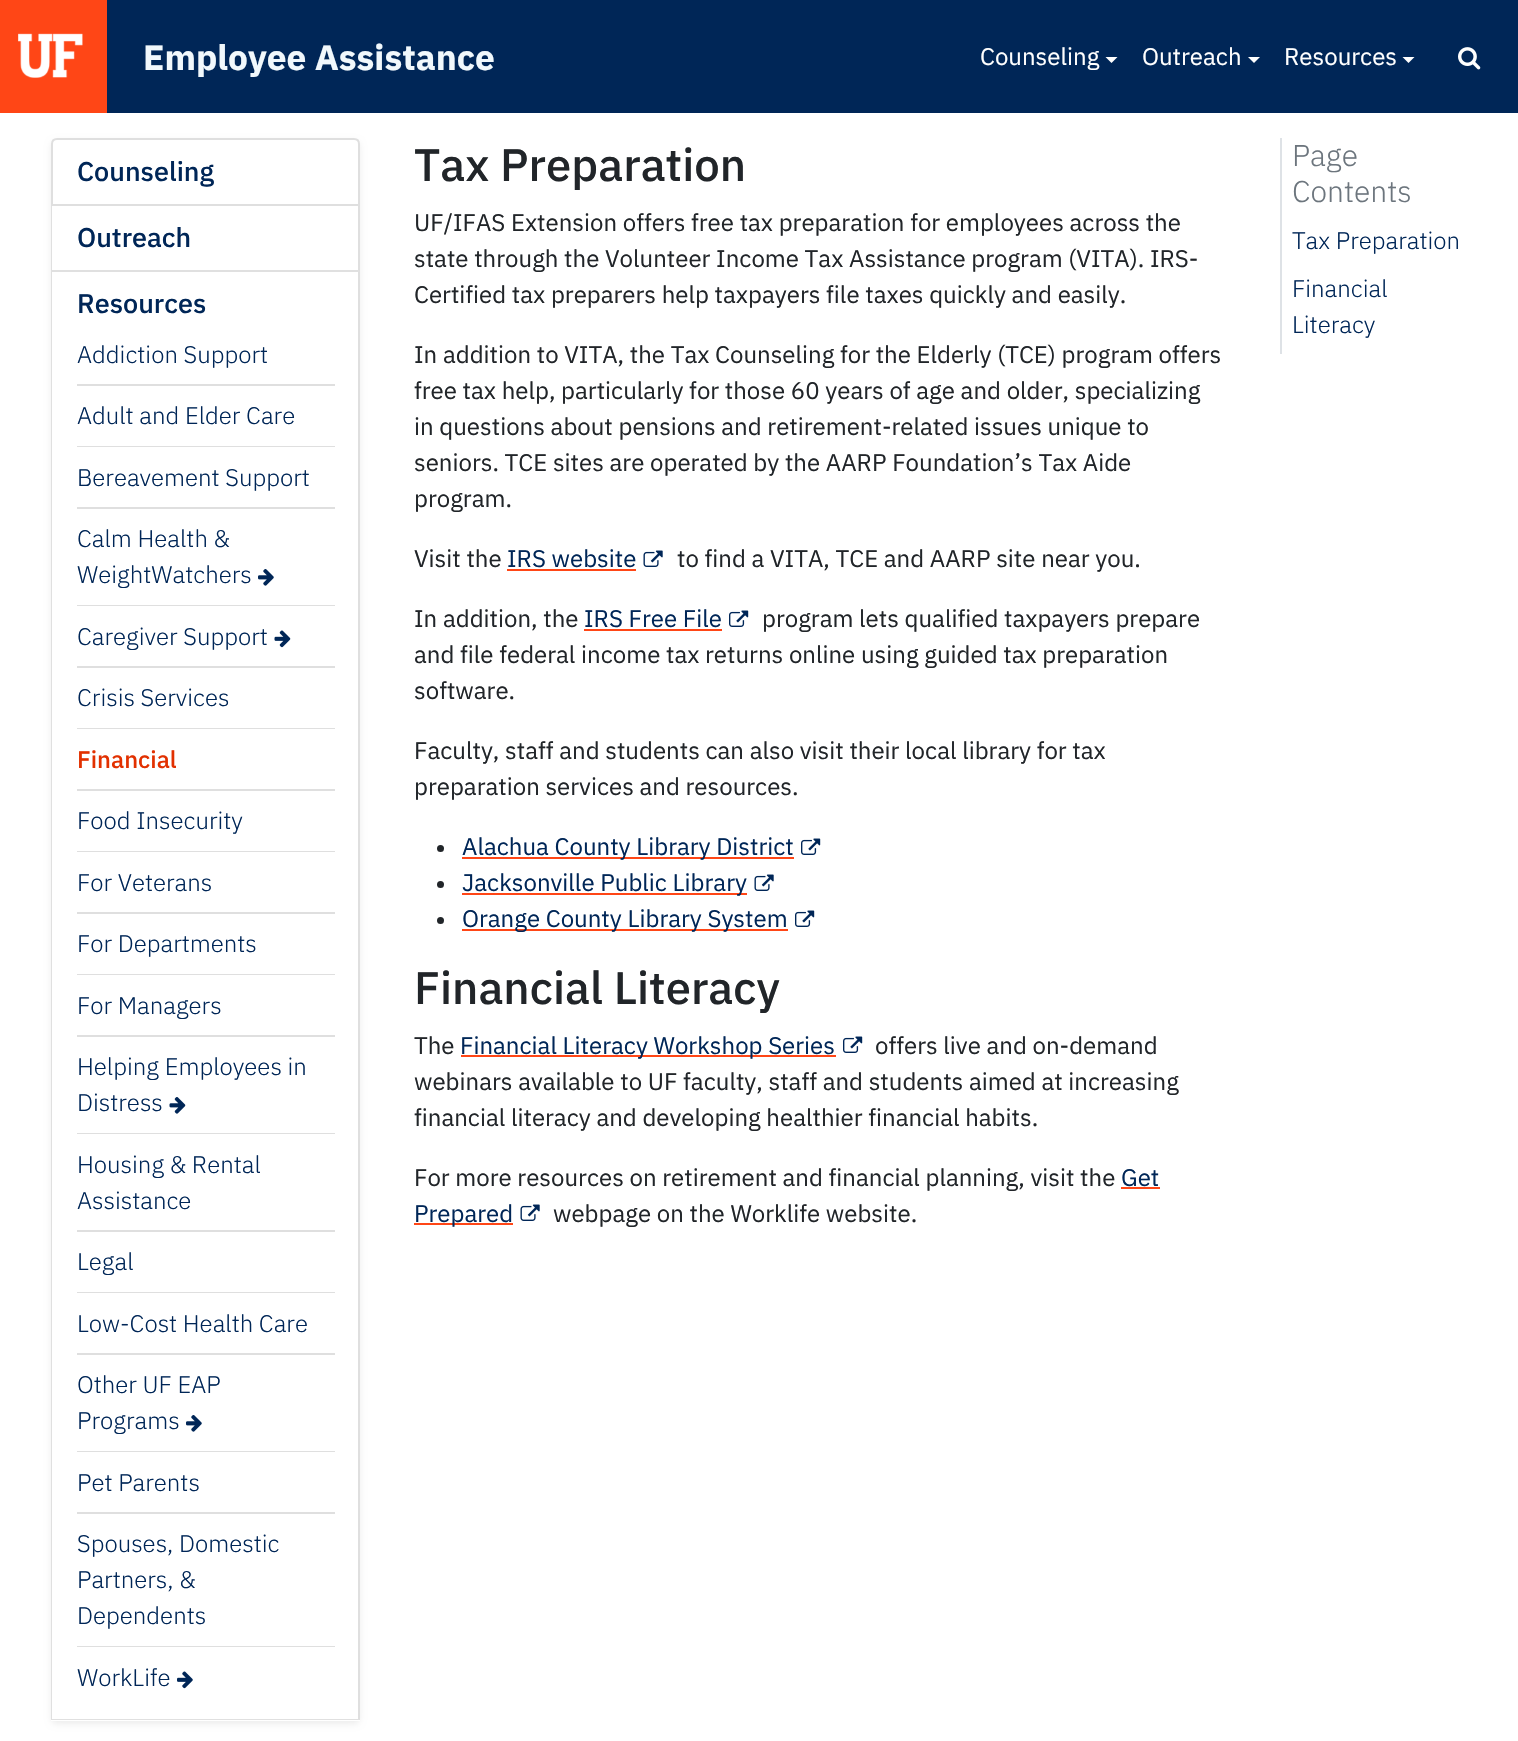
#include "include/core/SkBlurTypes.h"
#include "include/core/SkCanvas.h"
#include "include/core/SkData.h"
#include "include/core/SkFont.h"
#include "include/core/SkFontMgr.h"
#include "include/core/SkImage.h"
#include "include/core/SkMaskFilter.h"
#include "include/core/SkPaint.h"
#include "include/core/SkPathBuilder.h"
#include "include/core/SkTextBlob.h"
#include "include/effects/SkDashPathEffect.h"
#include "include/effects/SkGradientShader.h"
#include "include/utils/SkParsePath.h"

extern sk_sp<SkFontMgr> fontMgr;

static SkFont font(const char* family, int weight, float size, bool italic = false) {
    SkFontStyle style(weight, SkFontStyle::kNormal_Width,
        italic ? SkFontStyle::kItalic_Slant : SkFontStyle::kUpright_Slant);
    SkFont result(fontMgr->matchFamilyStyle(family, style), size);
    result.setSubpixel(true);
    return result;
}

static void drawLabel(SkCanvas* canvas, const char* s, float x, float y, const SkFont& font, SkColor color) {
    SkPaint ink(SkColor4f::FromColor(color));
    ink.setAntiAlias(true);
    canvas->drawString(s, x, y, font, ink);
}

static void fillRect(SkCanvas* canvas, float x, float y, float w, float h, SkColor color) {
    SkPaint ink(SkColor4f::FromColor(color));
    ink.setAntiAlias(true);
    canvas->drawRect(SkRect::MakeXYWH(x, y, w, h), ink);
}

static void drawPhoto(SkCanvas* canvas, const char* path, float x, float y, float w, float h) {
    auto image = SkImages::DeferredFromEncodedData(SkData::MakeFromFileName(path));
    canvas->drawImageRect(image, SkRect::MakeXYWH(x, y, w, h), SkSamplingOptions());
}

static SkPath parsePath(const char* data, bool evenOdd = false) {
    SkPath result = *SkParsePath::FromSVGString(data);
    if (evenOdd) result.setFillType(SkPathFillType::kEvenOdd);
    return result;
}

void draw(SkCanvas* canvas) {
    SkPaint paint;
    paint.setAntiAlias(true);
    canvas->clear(0xFFFFFFFF);
    fillRect(canvas, 107, 0, 1411, 113, 0xFF002657);
    fillRect(canvas, 0, 0, 107, 113, 0xFFFF4616);
    drawPhoto(canvas, "assets/img1.png", 18, 33, 65, 45);
    SkFont font1 = font("IBM Plex Sans", 700, 35.25f);
    drawLabel(canvas, "Employee Assistance", 143, 70, font1, 0xFFF1F8FC);
    SkFont font2 = font("IBM Plex Sans", 400, 24);
    drawLabel(canvas, "Counseling", 980, 65, font2, 0xFFFFFFFF);
    paint.setColor(0xFFFFFFFF);
    canvas->drawPath(parsePath("M1105.5 57H1117.5L1111.5 63Z"), paint);
    drawLabel(canvas, "Outreach", 1142, 65, font2, 0xFFFFFFFF);
    canvas->drawPath(parsePath("M1248 57H1260L1254 63Z"), paint);
    drawLabel(canvas, "Resources", 1284, 65, font2, 0xFFFFFFFF);
    canvas->drawPath(parsePath("M1402.5 57H1414.5L1408.5 63Z"), paint);
    drawPhoto(canvas, "assets/img2.png", 1458, 47, 23, 23);
    canvas->save();
    canvas->clipPath(parsePath("M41 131H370V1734H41ZM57 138H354C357.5 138 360 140.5 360 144V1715C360 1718.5 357.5 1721 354 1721H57C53.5 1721 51 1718.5 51 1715V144C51 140.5 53.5 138 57 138Z", true), true);
    paint.setColor(0x12000000);
    paint.setMaskFilter(SkMaskFilter::MakeBlur(kNormal_SkBlurStyle, 3));
    canvas->drawRoundRect(SkRect::MakeXYWH(51, 141, 309, 1583), 6, 6, paint);
    paint.setMaskFilter(nullptr);
    canvas->restore();
    paint.setStroke(true);
    paint.setStrokeWidth(2);
    paint.setColor(0xFFDFDFDF);
    canvas->drawPath(parsePath("M57 139H354C357 139 359 141 359 144V205H52V144C52 141 54 139 57 139Z"), paint);
    SkFont font3 = font("IBM Plex Sans", 500, 27);
    drawLabel(canvas, "Counseling", 77, 181, font3, 0xFF002657);
    paint.setStroke(false);
    canvas->drawPath(parsePath("M360 206V272L358 270V206Z"), paint);
    paint.setColor(0x1F000000);
    canvas->drawPath(parsePath("M360 272H51L52 270H358Z"), paint);
    canvas->drawPath(parsePath("M51 272V206H52V270Z"), paint);
    drawLabel(canvas, "Outreach", 77, 247, font3, 0xFF002657);
    fillRect(canvas, 51, 1716, 309, 5, 0xFFFFFFFF);
    paint.setColor(0xFFDFDFDF);
    canvas->drawPath(parsePath("M360 272V1720L358 1719V272Z"), paint);
    paint.setColor(0x1F000000);
    canvas->drawPath(parsePath("M360 1720H51L52 1719H358Z"), paint);
    canvas->drawPath(parsePath("M51 1720V272H52V1719Z"), paint);
    drawLabel(canvas, "Resources", 77, 313, font3, 0xFF002657);
    fillRect(canvas, 77, 384, 258, 2, 0xFFDFDFDF);
    SkFont font4 = font("IBM Plex Sans", 300, 24);
    drawLabel(canvas, "Addiction Support", 77, 363, font4, 0xFF002657);
    fillRect(canvas, 77, 446, 258, 1, 0xFFDFDFDF);
    drawLabel(canvas, "Adult and Elder Care", 77, 424, font4, 0xFF002657);
    fillRect(canvas, 77, 507, 258, 2, 0xFFDFDFDF);
    drawLabel(canvas, "Bereavement Support", 77, 486, font4, 0xFF002657);
    fillRect(canvas, 77, 605, 258, 1, 0xFFDFDFDF);
    drawLabel(canvas, "Calm Health &", 77, 547, font4, 0xFF002657);
    drawLabel(canvas, "WeightWatchers", 77, 583, font4, 0xFF002657);
    drawPhoto(canvas, "assets/img3.png", 258, 569, 16, 17);
    fillRect(canvas, 77, 666, 258, 2, 0xFFDFDFDF);
    drawLabel(canvas, "Caregiver Support", 77, 645, font4, 0xFF002657);
    drawPhoto(canvas, "assets/img4.png", 274, 630, 17, 18);
    fillRect(canvas, 77, 728, 258, 1, 0xFFDFDFDF);
    drawLabel(canvas, "Crisis Services", 77, 706, font4, 0xFF002657);
    fillRect(canvas, 77, 789, 258, 2, 0xFFDFDFDF);
    SkFont font5 = font("IBM Plex Sans", 500, 24);
    drawLabel(canvas, "Financial", 77, 768, font5, 0xFFE23000);
    fillRect(canvas, 77, 851, 258, 1, 0xFFDFDFDF);
    drawLabel(canvas, "Food Insecurity", 77, 829, font4, 0xFF002657);
    fillRect(canvas, 77, 912, 258, 2, 0xFFDFDFDF);
    drawLabel(canvas, "For Veterans", 77, 891, font4, 0xFF002657);
    fillRect(canvas, 77, 974, 258, 1, 0xFFDFDFDF);
    drawLabel(canvas, "For Departments", 77, 952, font4, 0xFF002657);
    fillRect(canvas, 77, 1035, 258, 2, 0xFFDFDFDF);
    drawLabel(canvas, "For Managers", 77, 1014, font4, 0xFF002657);
    fillRect(canvas, 77, 1133, 258, 1, 0xFFDFDFDF);
    drawLabel(canvas, "Helping Employees in", 77, 1075, font4, 0xFF002657);
    drawLabel(canvas, "Distress", 77, 1111, font4, 0xFF002657);
    drawPhoto(canvas, "assets/img5.png", 169, 1097, 17, 17);
    fillRect(canvas, 77, 1230, 258, 2, 0xFFDFDFDF);
    drawLabel(canvas, "Housing & Rental", 77, 1173, font4, 0xFF002657);
    drawLabel(canvas, "Assistance", 77, 1209, font4, 0xFF002657);
    fillRect(canvas, 77, 1292, 258, 1, 0xFFDFDFDF);
    drawLabel(canvas, "Legal", 77, 1270, font4, 0xFF002657);
    fillRect(canvas, 77, 1353, 258, 2, 0xFFDFDFDF);
    drawLabel(canvas, "Low-Cost Health Care", 77, 1332, font4, 0xFF002657);
    fillRect(canvas, 77, 1451, 258, 1, 0xFFDFDFDF);
    drawLabel(canvas, "Other UF EAP", 77, 1393, font4, 0xFF002657);
    drawLabel(canvas, "Programs", 77, 1429, font4, 0xFF002657);
    drawPhoto(canvas, "assets/img3.png", 186, 1415, 16, 17);
    fillRect(canvas, 77, 1512, 258, 2, 0xFFDFDFDF);
    drawLabel(canvas, "Pet Parents", 77, 1491, font4, 0xFF002657);
    fillRect(canvas, 77, 1646, 258, 1, 0xFFDFDFDF);
    drawLabel(canvas, "Spouses, Domestic", 77, 1552, font4, 0xFF002657);
    drawLabel(canvas, "Partners, &", 77, 1588, font4, 0xFF002657);
    drawLabel(canvas, "Dependents", 77, 1624, font4, 0xFF002657);
    drawLabel(canvas, "WorkLife", 77, 1686, font4, 0xFF002657);
    drawPhoto(canvas, "assets/img6.png", 177, 1671, 16, 18);
    SkFont font6 = font("IBM Plex Sans", 500, 45.5f);
    drawLabel(canvas, "Tax Preparation", 414, 181, font6, 0xFF212529);
    drawLabel(canvas, "UF/IFAS Extension offers free tax preparation for employees across the", 414, 231, font2, 0xFF212529);
    drawLabel(canvas, "state through the Volunteer Income Tax Assistance program (VITA). IRS-", 414, 267, font2, 0xFF212529);
    drawLabel(canvas, "Certified tax preparers help taxpayers file taxes quickly and easily.", 414, 303, font2, 0xFF212529);
    drawLabel(canvas, "In addition to VITA, the Tax Counseling for the Elderly (TCE) program offers", 414, 363, font2, 0xFF212529);
    drawLabel(canvas, "free tax help, particularly for those 60 years of age and older, specializing", 414, 399, font2, 0xFF212529);
    drawLabel(canvas, "in questions about pensions and retirement-related issues unique to", 414, 435, font2, 0xFF212529);
    drawLabel(canvas, "seniors. TCE sites are operated by the AARP Foundation’s Tax Aide", 414, 471, font2, 0xFF212529);
    drawLabel(canvas, "program.", 414, 507, font2, 0xFF212529);
    drawLabel(canvas, "Visit the", 414, 567, font2, 0xFF212529);
    drawLabel(canvas, "IRS website", 507, 567, font2, 0xFF002657);
    fillRect(canvas, 507, 569, 129, 2, 0xFFFF4616);
    drawPhoto(canvas, "assets/img7.png", 643, 550, 20, 17);
    drawLabel(canvas, "to find a VITA, TCE and AARP site near you.", 677, 567, font2, 0xFF212529);
    drawLabel(canvas, "In addition, the", 414, 627, font2, 0xFF212529);
    drawLabel(canvas, "IRS Free File", 584, 627, font2, 0xFF002657);
    fillRect(canvas, 584, 629, 138, 2, 0xFFFF4616);
    drawPhoto(canvas, "assets/img8.png", 729, 610, 20, 17);
    drawLabel(canvas, "program lets qualified taxpayers prepare", 762, 627, font2, 0xFF212529);
    drawLabel(canvas, "and file federal income tax returns online using guided tax preparation", 414, 663, font2, 0xFF212529);
    drawLabel(canvas, "software.", 414, 699, font2, 0xFF212529);
    drawLabel(canvas, "Faculty, staff and students can also visit their local library for tax", 414, 759, font2, 0xFF212529);
    drawLabel(canvas, "preparation services and resources.", 414, 795, font2, 0xFF212529);
    paint.setColor(0xFF212529);
    canvas->drawCircle(440.5f, 848.5f, 3.5f, paint);
    fillRect(canvas, 462, 857, 332, 2, 0xFFFF4616);
    drawLabel(canvas, "Alachua County Library District", 462, 855, font2, 0xFF002657);
    drawPhoto(canvas, "assets/img8.png", 801, 838, 20, 17);
    canvas->drawCircle(440.5f, 884.5f, 3.5f, paint);
    fillRect(canvas, 462, 893, 285, 2, 0xFFFF4616);
    drawLabel(canvas, "Jacksonville Public Library", 462, 891, font2, 0xFF002657);
    drawPhoto(canvas, "assets/img7.png", 754, 874, 20, 17);
    canvas->drawCircle(440.5f, 920.5f, 3.5f, paint);
    fillRect(canvas, 462, 929, 326, 2, 0xFFFF4616);
    drawLabel(canvas, "Orange County Library System", 462, 927, font2, 0xFF002657);
    drawPhoto(canvas, "assets/img8.png", 795, 910, 20, 17);
    drawLabel(canvas, "Financial Literacy", 414, 1004, font6, 0xFF212529);
    drawLabel(canvas, "The", 414, 1054, font2, 0xFF212529);
    fillRect(canvas, 461, 1055, 375, 2, 0xFFFF4616);
    drawLabel(canvas, "Financial Literacy Workshop Series", 460, 1054, font2, 0xFF002657);
    drawPhoto(canvas, "assets/img8.png", 843, 1036, 20, 17);
    drawLabel(canvas, "offers live and on-demand", 875, 1054, font2, 0xFF212529);
    drawLabel(canvas, "webinars available to UF faculty, staff and students aimed at increasing", 414, 1090, font2, 0xFF212529);
    drawLabel(canvas, "financial literacy and developing healthier financial habits.", 414, 1126, font2, 0xFF212529);
    drawLabel(canvas, "For more resources on retirement and financial planning, visit the", 414, 1186, font2, 0xFF212529);
    drawLabel(canvas, "Get", 1121, 1186, font2, 0xFF002657);
    fillRect(canvas, 1121, 1187, 39, 2, 0xFFFF4616);
    fillRect(canvas, 414, 1223, 99, 2, 0xFFFF4616);
    drawLabel(canvas, "Prepared", 414, 1222, font2, 0xFF002657);
    drawPhoto(canvas, "assets/img7.png", 520, 1204, 20, 17);
    drawLabel(canvas, "webpage on the Worklife website.", 553, 1222, font2, 0xFF212529);
    fillRect(canvas, 1280, 138, 2, 216, 0xFFDEE2E6);
    SkFont font7 = font("IBM Plex Sans", 300, 30);
    drawLabel(canvas, "Page", 1292, 166, font7, 0xFF6C757D);
    drawLabel(canvas, "Contents", 1292, 202, font7, 0xFF6C757D);
    drawLabel(canvas, "Tax Preparation", 1292, 249, font4, 0xFF002657);
    drawLabel(canvas, "Financial", 1292, 297, font4, 0xFF002657);
    drawLabel(canvas, "Literacy", 1292, 333, font4, 0xFF002657);
}
